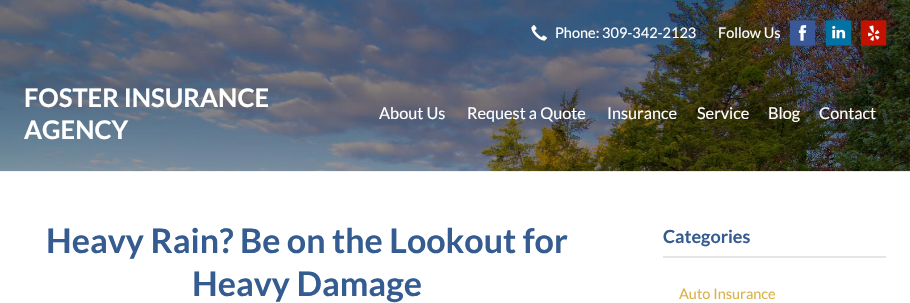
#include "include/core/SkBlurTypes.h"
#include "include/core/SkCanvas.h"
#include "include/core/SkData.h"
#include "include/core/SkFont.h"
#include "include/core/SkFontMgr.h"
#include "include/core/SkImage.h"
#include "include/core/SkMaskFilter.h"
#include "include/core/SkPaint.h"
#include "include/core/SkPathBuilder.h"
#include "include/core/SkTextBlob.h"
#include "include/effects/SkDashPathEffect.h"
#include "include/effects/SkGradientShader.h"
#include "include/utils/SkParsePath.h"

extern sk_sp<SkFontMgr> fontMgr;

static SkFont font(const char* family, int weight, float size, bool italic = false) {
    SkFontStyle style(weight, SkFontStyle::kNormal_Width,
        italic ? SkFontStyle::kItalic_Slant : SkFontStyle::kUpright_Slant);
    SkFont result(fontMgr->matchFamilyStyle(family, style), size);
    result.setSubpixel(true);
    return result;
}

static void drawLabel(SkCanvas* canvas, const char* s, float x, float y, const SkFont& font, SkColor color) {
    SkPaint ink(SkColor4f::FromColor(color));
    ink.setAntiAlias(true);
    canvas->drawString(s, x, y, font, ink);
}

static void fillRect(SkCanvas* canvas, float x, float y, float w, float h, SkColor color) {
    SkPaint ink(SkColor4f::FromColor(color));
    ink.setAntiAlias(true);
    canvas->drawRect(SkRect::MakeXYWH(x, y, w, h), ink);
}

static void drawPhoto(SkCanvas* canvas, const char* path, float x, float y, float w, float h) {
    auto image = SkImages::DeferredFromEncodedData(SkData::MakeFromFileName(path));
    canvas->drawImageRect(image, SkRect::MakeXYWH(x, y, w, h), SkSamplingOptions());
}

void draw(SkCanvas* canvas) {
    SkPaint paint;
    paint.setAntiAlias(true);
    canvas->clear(0xFFFFFFFF);
    drawPhoto(canvas, "assets/img1.png", 0, 0, 910, 172);
    drawPhoto(canvas, "assets/img2.png", 531, 25, 16, 16);
    SkFont font1 = font("Lato", 400, 14.5f);
    drawLabel(canvas, "Phone: 309-342-2123", 555, 38, font1, 0xFFFFFFFF);
    drawLabel(canvas, "Follow Us", 718, 38, font1, 0xFFFFFFFF);
    fillRect(canvas, 798, 25, 9, 16, 0xFFFFFFFF);
    drawPhoto(canvas, "assets/img3.png", 790, 20, 26, 26);
    fillRect(canvas, 832, 26, 14, 13, 0xFFFFFFFF);
    drawPhoto(canvas, "assets/img4.png", 826, 20, 26, 26);
    fillRect(canvas, 868, 25, 12, 16, 0xFFFFFFFF);
    drawPhoto(canvas, "assets/img5.png", 861, 20, 26, 26);
    SkFont font2 = font("Lato", 700, 25.5f);
    drawLabel(canvas, "FOSTER INSURANCE", 24, 107, font2, 0xFFFFFFFF);
    drawLabel(canvas, "AGENCY", 24, 139, font2, 0xFFFFFFFF);
    SkFont font3 = font("Lato", 400, 16.25f);
    drawLabel(canvas, "About Us", 379, 119, font3, 0xFFFFFFFF);
    drawLabel(canvas, "Request a Quote", 467, 119, font3, 0xFFFFFFFF);
    drawLabel(canvas, "Insurance", 607, 119, font3, 0xFFFFFFFF);
    drawLabel(canvas, "Service", 697, 119, font3, 0xFFFFFFFF);
    drawLabel(canvas, "Blog", 768, 119, font3, 0xFFFFFFFF);
    drawLabel(canvas, "Contact", 819, 119, font3, 0xFFFFFFFF);
    SkFont font4 = font("Lato", 700, 34);
    drawLabel(canvas, "Heavy Rain? Be on the Lookout for", 46, 253, font4, 0xFF355C90);
    drawLabel(canvas, "Heavy Damage", 192, 296, font4, 0xFF355C90);
    fillRect(canvas, 663, 256, 223, 2, 0xFFE6E6E6);
    SkFont font5 = font("Lato", 700, 18);
    drawLabel(canvas, "Categories", 663, 243, font5, 0xFF355C90);
    drawLabel(canvas, "Auto Insurance", 679, 299, font1, 0xFFDAB349);
}
